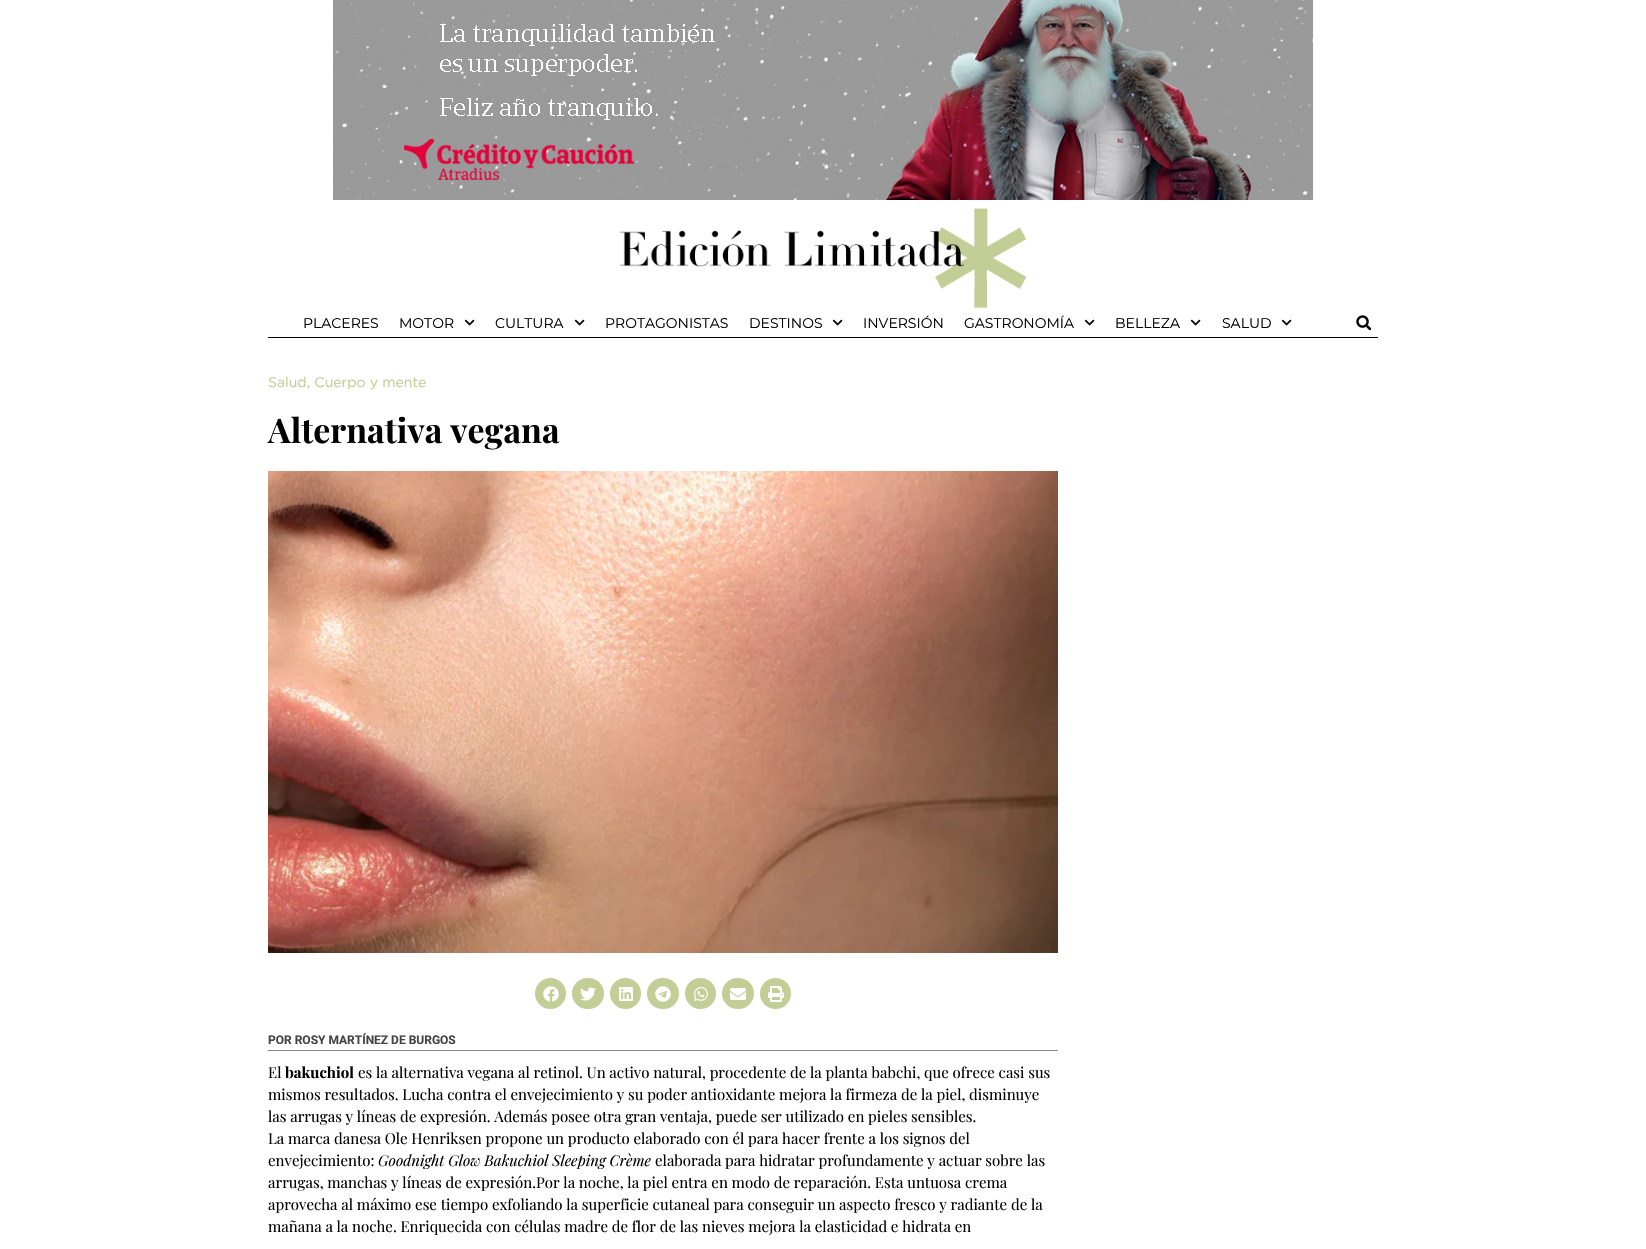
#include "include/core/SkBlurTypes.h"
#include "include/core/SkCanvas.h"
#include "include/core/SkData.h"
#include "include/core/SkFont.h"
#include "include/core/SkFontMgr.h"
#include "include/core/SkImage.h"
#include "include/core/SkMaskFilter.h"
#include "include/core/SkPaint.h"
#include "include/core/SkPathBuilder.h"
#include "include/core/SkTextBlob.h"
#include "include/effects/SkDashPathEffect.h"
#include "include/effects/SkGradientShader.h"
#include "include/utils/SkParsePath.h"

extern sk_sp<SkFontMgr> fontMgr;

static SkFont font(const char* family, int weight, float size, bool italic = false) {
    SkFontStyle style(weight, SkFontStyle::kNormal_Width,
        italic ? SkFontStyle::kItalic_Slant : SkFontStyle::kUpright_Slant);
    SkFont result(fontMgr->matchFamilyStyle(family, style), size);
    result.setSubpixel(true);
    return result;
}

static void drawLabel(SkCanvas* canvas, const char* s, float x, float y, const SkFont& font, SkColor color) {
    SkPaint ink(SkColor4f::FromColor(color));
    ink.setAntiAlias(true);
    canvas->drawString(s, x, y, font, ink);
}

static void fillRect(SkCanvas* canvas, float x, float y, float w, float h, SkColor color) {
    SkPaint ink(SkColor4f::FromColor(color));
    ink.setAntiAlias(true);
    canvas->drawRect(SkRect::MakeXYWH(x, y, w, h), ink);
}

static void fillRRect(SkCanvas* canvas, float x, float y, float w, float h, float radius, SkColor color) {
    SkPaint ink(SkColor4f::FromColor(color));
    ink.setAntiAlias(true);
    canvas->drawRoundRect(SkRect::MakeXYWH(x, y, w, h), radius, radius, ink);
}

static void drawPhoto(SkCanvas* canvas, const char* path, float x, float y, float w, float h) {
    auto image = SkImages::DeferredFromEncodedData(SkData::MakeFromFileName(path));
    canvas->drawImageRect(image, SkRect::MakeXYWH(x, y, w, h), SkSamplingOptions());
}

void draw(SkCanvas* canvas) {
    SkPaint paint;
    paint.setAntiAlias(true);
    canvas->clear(0xFFFFFFFF);
    drawPhoto(canvas, "assets/img1.png", 333, 0, 980, 200);
    drawPhoto(canvas, "assets/img2.png", 619, 208, 408, 101);
    SkFont font1 = font("Montserrat", 400, 14);
    drawLabel(canvas, "PLACERES", 303, 328, font1, 0xFF000000);
    drawLabel(canvas, "MOTOR", 399, 328, font1, 0xFF000000);
    drawPhoto(canvas, "assets/img3.png", 464, 319, 11, 7);
    drawLabel(canvas, "CULTURA", 495, 328, font1, 0xFF000000);
    drawPhoto(canvas, "assets/img3.png", 574, 319, 11, 7);
    drawLabel(canvas, "PROTAGONISTAS", 605, 328, font1, 0xFF000000);
    drawLabel(canvas, "DESTINOS", 749, 328, font1, 0xFF000000);
    drawPhoto(canvas, "assets/img3.png", 832, 319, 11, 7);
    drawLabel(canvas, "INVERSIÓN", 863, 328, font1, 0xFF000000);
    drawLabel(canvas, "GASTRONOMÍA", 964, 328, font1, 0xFF000000);
    drawPhoto(canvas, "assets/img3.png", 1084, 319, 11, 7);
    drawLabel(canvas, "BELLEZA", 1115, 328, font1, 0xFF000000);
    drawPhoto(canvas, "assets/img3.png", 1190, 319, 11, 7);
    drawLabel(canvas, "SALUD", 1222, 328, font1, 0xFF000000);
    drawPhoto(canvas, "assets/img3.png", 1281, 319, 11, 7);
    drawPhoto(canvas, "assets/img4.png", 1356, 315, 15, 15);
    fillRect(canvas, 268, 337, 1110, 1, 0xFF000000);
    SkFont font2 = font("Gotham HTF", 400, 14);
    drawLabel(canvas, "Salud, Cuerpo y mente", 268, 387, font2, 0xFFC3CD96);
    SkFont font3 = font("Playfair Display", 700, 34);
    drawLabel(canvas, "Alternativa vegana", 268, 443, font3, 0xFF000000);
    drawPhoto(canvas, "assets/img5.png", 268, 471, 790, 482);
    paint.setColor(0xFFC3CD96);
    canvas->drawCircle(550.5f, 993.5f, 15.5f, paint);
    drawPhoto(canvas, "assets/img6.png", 543, 986, 16, 16);
    fillRRect(canvas, 572, 978, 32, 31, 15.5f, 0xFFC3CD96);
    drawPhoto(canvas, "assets/img7.png", 580, 987, 16, 14);
    canvas->drawCircle(625.5f, 993.5f, 15.5f, paint);
    drawPhoto(canvas, "assets/img8.png", 619, 987, 14, 14);
    fillRRect(canvas, 647, 978, 32, 31, 15.5f, 0xFFC3CD96);
    drawPhoto(canvas, "assets/img9.png", 655, 986, 16, 16);
    canvas->drawCircle(700.5f, 993.5f, 15.5f, paint);
    drawPhoto(canvas, "assets/img10.png", 694, 987, 14, 14);
    fillRRect(canvas, 722, 978, 32, 31, 15.5f, 0xFFC3CD96);
    drawPhoto(canvas, "assets/img11.png", 730, 988, 16, 12);
    canvas->drawCircle(775.5f, 993.5f, 15.5f, paint);
    drawPhoto(canvas, "assets/img12.png", 768, 986, 16, 16);
    fillRect(canvas, 268, 1050, 790, 1, 0xFF888888);
    SkFont font4 = font("Roboto", 700, 12);
    drawLabel(canvas, "POR ROSY MARTÍNEZ DE BURGOS", 268, 1044, font4, 0xFF444444);
    SkFont font5 = font("Playfair Display", 400, 15);
    drawLabel(canvas, "El", 268, 1078, font5, 0xFF000000);
    SkFont font6 = font("Playfair Display", 700, 15);
    drawLabel(canvas, "bakuchiol", 285, 1078, font6, 0xFF000000);
    drawLabel(canvas, "es la alternativa vegana al retinol. Un activo natural, procedente de la planta babchi, que ofrece casi sus", 358, 1078, font5, 0xFF000000);
    drawLabel(canvas, "mismos resultados. Lucha contra el envejecimiento y su poder antioxidante mejora la firmeza de la piel, disminuye", 268, 1100, font5, 0xFF000000);
    drawLabel(canvas, "las arrugas y líneas de expresión. Además posee otra gran ventaja, puede ser utilizado en pieles sensibles.", 268, 1122, font5, 0xFF000000);
    drawLabel(canvas, "La marca danesa Ole Henriksen propone un producto elaborado con él para hacer frente a los signos del", 268, 1144, font5, 0xFF000000);
    drawLabel(canvas, "envejecimiento:", 268, 1166, font5, 0xFF000000);
    SkFont font7 = font("Playfair Display", 400, 15, true);
    drawLabel(canvas, "Goodnight Glow Bakuchiol Sleeping Crème", 378, 1166, font7, 0xFF000000);
    drawLabel(canvas, "elaborada para hidratar profundamente y actuar sobre las", 655, 1166, font5, 0xFF000000);
    drawLabel(canvas, "arrugas, manchas y líneas de expresión.Por la noche, la piel entra en modo de reparación. Esta untuosa crema", 268, 1188, font5, 0xFF000000);
    drawLabel(canvas, "aprovecha al máximo ese tiempo exfoliando la superficie cutaneal para conseguir un aspecto fresco y radiante de la", 268, 1210, font5, 0xFF000000);
    drawLabel(canvas, "mañana a la noche. Enriquecida con células madre de flor de las nieves mejora la elasticidad e hidrata en", 268, 1232, font5, 0xFF000000);
}
